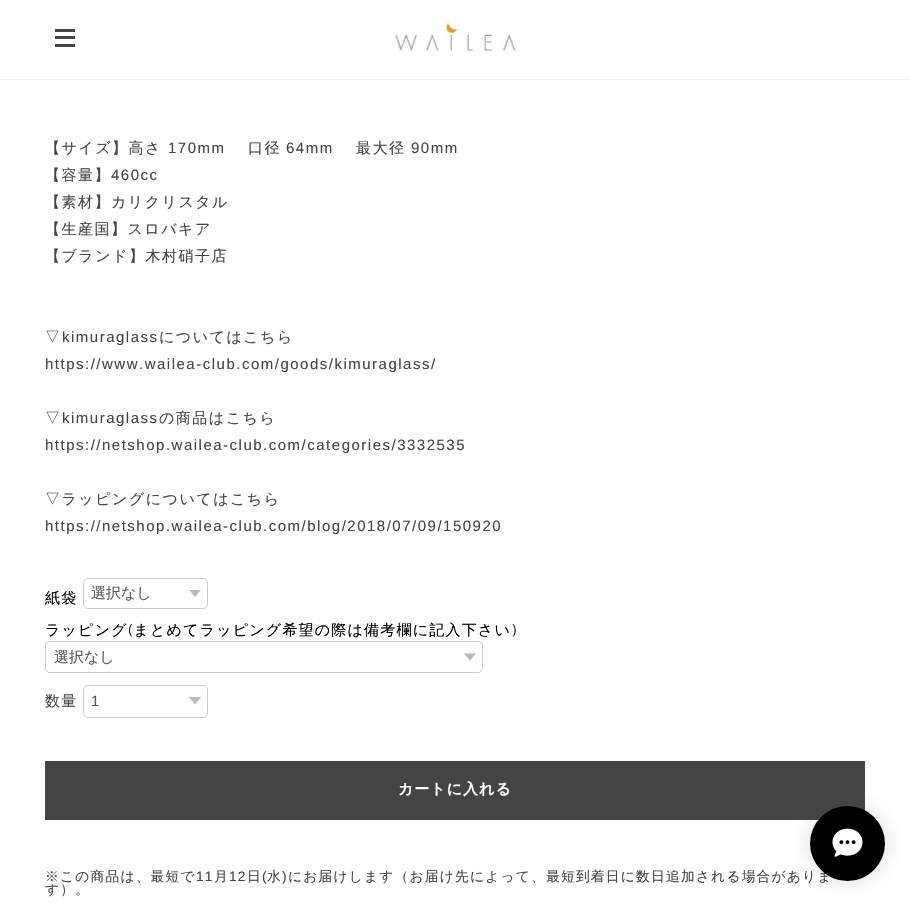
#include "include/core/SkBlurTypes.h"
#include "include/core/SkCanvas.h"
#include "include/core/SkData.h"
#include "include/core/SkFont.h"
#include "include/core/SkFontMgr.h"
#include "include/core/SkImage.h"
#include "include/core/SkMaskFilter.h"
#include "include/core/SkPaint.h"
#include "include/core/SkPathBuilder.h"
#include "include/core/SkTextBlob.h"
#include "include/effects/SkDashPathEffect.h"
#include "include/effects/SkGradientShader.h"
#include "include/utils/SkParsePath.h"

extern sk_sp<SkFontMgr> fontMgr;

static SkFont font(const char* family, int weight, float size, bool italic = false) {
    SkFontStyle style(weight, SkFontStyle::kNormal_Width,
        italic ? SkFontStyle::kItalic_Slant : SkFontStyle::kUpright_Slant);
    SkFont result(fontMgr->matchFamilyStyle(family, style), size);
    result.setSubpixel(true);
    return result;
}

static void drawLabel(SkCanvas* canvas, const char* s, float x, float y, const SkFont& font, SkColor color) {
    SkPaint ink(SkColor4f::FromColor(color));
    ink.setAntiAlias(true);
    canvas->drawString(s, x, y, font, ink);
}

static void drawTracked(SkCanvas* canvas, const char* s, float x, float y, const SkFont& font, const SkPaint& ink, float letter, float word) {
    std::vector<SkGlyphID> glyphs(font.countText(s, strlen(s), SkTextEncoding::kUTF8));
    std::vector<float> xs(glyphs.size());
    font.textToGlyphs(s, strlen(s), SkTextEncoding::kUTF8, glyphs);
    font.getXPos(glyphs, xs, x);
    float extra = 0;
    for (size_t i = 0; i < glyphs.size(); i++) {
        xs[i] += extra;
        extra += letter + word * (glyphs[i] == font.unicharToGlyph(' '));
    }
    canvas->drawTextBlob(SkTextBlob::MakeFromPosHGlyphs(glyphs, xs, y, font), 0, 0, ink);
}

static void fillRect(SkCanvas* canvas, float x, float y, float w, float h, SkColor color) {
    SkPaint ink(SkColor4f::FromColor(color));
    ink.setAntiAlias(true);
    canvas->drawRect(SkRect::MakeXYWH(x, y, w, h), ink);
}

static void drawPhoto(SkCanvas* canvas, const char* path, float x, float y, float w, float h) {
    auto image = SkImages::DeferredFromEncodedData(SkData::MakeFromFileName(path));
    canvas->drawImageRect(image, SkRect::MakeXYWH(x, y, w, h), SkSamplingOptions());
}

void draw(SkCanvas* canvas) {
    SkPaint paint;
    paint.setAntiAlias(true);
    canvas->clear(0xFFFFFFFF);
    fillRect(canvas, 0, 79, 910, 1, 0xFFF0F0F0);
    fillRect(canvas, 55, 29, 20, 3, 0xFF444444);
    fillRect(canvas, 55, 36, 20, 3, 0xFF444444);
    fillRect(canvas, 55, 44, 20, 3, 0xFF444444);
    drawPhoto(canvas, "assets/img1.png", 395, 20, 121, 33);
    SkFont font1 = font("WenQuanYi Zen Hei", 500, 15);
    paint.setColor(0xFF434343);
    drawTracked(canvas, "【サイズ】高さ", 45, 153, font1, paint, 1.5f, 0);
    SkFont font2 = font("Liberation Sans", 400, 15);
    drawTracked(canvas, "170mm", 168, 153, font2, paint, 1.5f, 0);
    drawTracked(canvas, "口径", 248, 153, font1, paint, 1.5f, 0);
    drawTracked(canvas, "64mm", 286, 153, font2, paint, 1.5f, 0);
    drawTracked(canvas, "最大径", 356, 153, font1, paint, 1.5f, 0);
    drawTracked(canvas, "90mm", 411, 153, font2, paint, 1.5f, 0);
    drawTracked(canvas, "【容量】", 45, 180, font1, paint, 1.5f, 0);
    drawTracked(canvas, "460cc", 111, 180, font2, paint, 1.5f, 0);
    drawTracked(canvas, "【素材】カリクリスタル", 45, 207, font1, paint, 1.5f, 0);
    drawTracked(canvas, "【生産国】スロバキア", 45, 234, font1, paint, 1.5f, 0);
    drawTracked(canvas, "【ブランド】木村硝子店", 45, 261, font1, paint, 1.5f, 0);
    drawTracked(canvas, "▽", 45, 342, font1, paint, 1.5f, 0);
    drawTracked(canvas, "kimuraglass", 62, 342, font2, paint, 1.5f, 0);
    drawTracked(canvas, "についてはこちら", 159, 342, font1, paint, 1.5f, 0);
    drawTracked(canvas, "https://www.wailea-club.com/goods/kimuraglass/", 45, 369, font2, paint, 1.5f, 0);
    drawTracked(canvas, "▽", 45, 423, font1, paint, 1.5f, 0);
    drawTracked(canvas, "kimuraglass", 62, 423, font2, paint, 1.5f, 0);
    drawTracked(canvas, "の商品はこちら", 159, 423, font1, paint, 1.5f, 0);
    drawTracked(canvas, "https://netshop.wailea-club.com/categories/3332535", 45, 450, font2, paint, 1.5f, 0);
    drawTracked(canvas, "▽ラッピングについてはこちら", 45, 504, font1, paint, 1.5f, 0);
    drawTracked(canvas, "https://netshop.wailea-club.com/blog/2018/07/09/150920", 45, 531, font2, paint, 1.5f, 0);
    paint.setColor(0xFF000000);
    drawTracked(canvas, "紙袋", 45, 603, font1, paint, 1.2f, 0);
    drawPhoto(canvas, "assets/img2.png", 189, 590, 12, 7);
    paint.setStroke(true);
    paint.setStrokeWidth(1);
    paint.setColor(0xFFCCCCCC);
    canvas->drawRoundRect(SkRect::MakeXYWH(83.5f, 578.5f, 124, 30), 4.5f, 4.5f, paint);
    drawLabel(canvas, "選択なし", 91, 598, font1, 0xFF555555);
    paint.setStroke(false);
    paint.setColor(0xFF000000);
    drawTracked(canvas, "ラッピング まとめてラッピング希望の際は備考欄に記入下さい", 45, 635, font1, paint, 1.2f, 0);
    SkFont font3 = font("Crimson Text", 400, 15);
    drawTracked(canvas, "(", 128, 635, font3, paint, 1.2f, 0);
    drawTracked(canvas, ")", 512, 635, font3, paint, 1.2f, 0);
    drawPhoto(canvas, "assets/img3.png", 464, 653, 12, 8);
    paint.setStroke(true);
    paint.setColor(0xFFCCCCCC);
    canvas->drawRoundRect(SkRect::MakeXYWH(45.5f, 641.5f, 437, 31), 4.5f, 4.5f, paint);
    drawLabel(canvas, "選択なし", 54, 662, font1, 0xFF555555);
    paint.setStroke(false);
    paint.setColor(0xFF434343);
    drawTracked(canvas, "数量", 45, 706, font1, paint, 1.2f, 0);
    drawPhoto(canvas, "assets/img4.png", 189, 697, 12, 7);
    paint.setStroke(true);
    paint.setColor(0xFFCCCCCC);
    canvas->drawRoundRect(SkRect::MakeXYWH(83.5f, 685.5f, 124, 32), 4.5f, 4.5f, paint);
    drawLabel(canvas, "1", 91, 706, font2, 0xFF555555);
    fillRect(canvas, 45, 761, 820, 59, 0xFF444444);
    SkFont font4 = font("WenQuanYi Zen Hei", 700, 15);
    paint.setStroke(false);
    paint.setColor(0xFFFFFFFF);
    drawTracked(canvas, "カートに入れる", 398, 794, font4, paint, 1, 0);
    SkFont font5 = font("WenQuanYi Zen Hei", 500, 13.75f);
    paint.setColor(0xFF434343);
    drawTracked(canvas, "※この商品は、最短で", 45, 881, font5, paint, 1.2f, 0);
    SkFont font6 = font("Liberation Sans", 400, 13.75f);
    drawTracked(canvas, "11", 196, 881, font6, paint, 1.2f, 0);
    drawTracked(canvas, "月", 214, 881, font5, paint, 1.2f, 0);
    drawTracked(canvas, "12", 229, 881, font6, paint, 1.2f, 0);
    drawTracked(canvas, "日", 247, 881, font5, paint, 1.2f, 0);
    drawTracked(canvas, "(", 262, 881, font6, paint, 1.2f, 0);
    drawTracked(canvas, "水", 267, 881, font5, paint, 1.2f, 0);
    drawTracked(canvas, ")", 282, 881, font6, paint, 1.2f, 0);
    drawTracked(canvas, "にお届けします（お届け先によって、最短到着日に数日追加される場合がありま", 288, 881, font5, paint, 1.2f, 0);
    drawTracked(canvas, "す）。", 45, 894, font5, paint, 1.2f, 0);
    paint.setColor(0x33334258);
    paint.setMaskFilter(SkMaskFilter::MakeBlur(kNormal_SkBlurStyle, 9.5f));
    canvas->drawRoundRect(SkRect::MakeXYWH(810, 806, 75, 75), 37.5f, 37.5f, paint);
    paint.setMaskFilter(nullptr);
    paint.setColor(0xFF000000);
    canvas->drawCircle(847.5f, 843.5f, 37.5f, paint);
    drawPhoto(canvas, "assets/img5.png", 832, 828, 31, 29);
}
